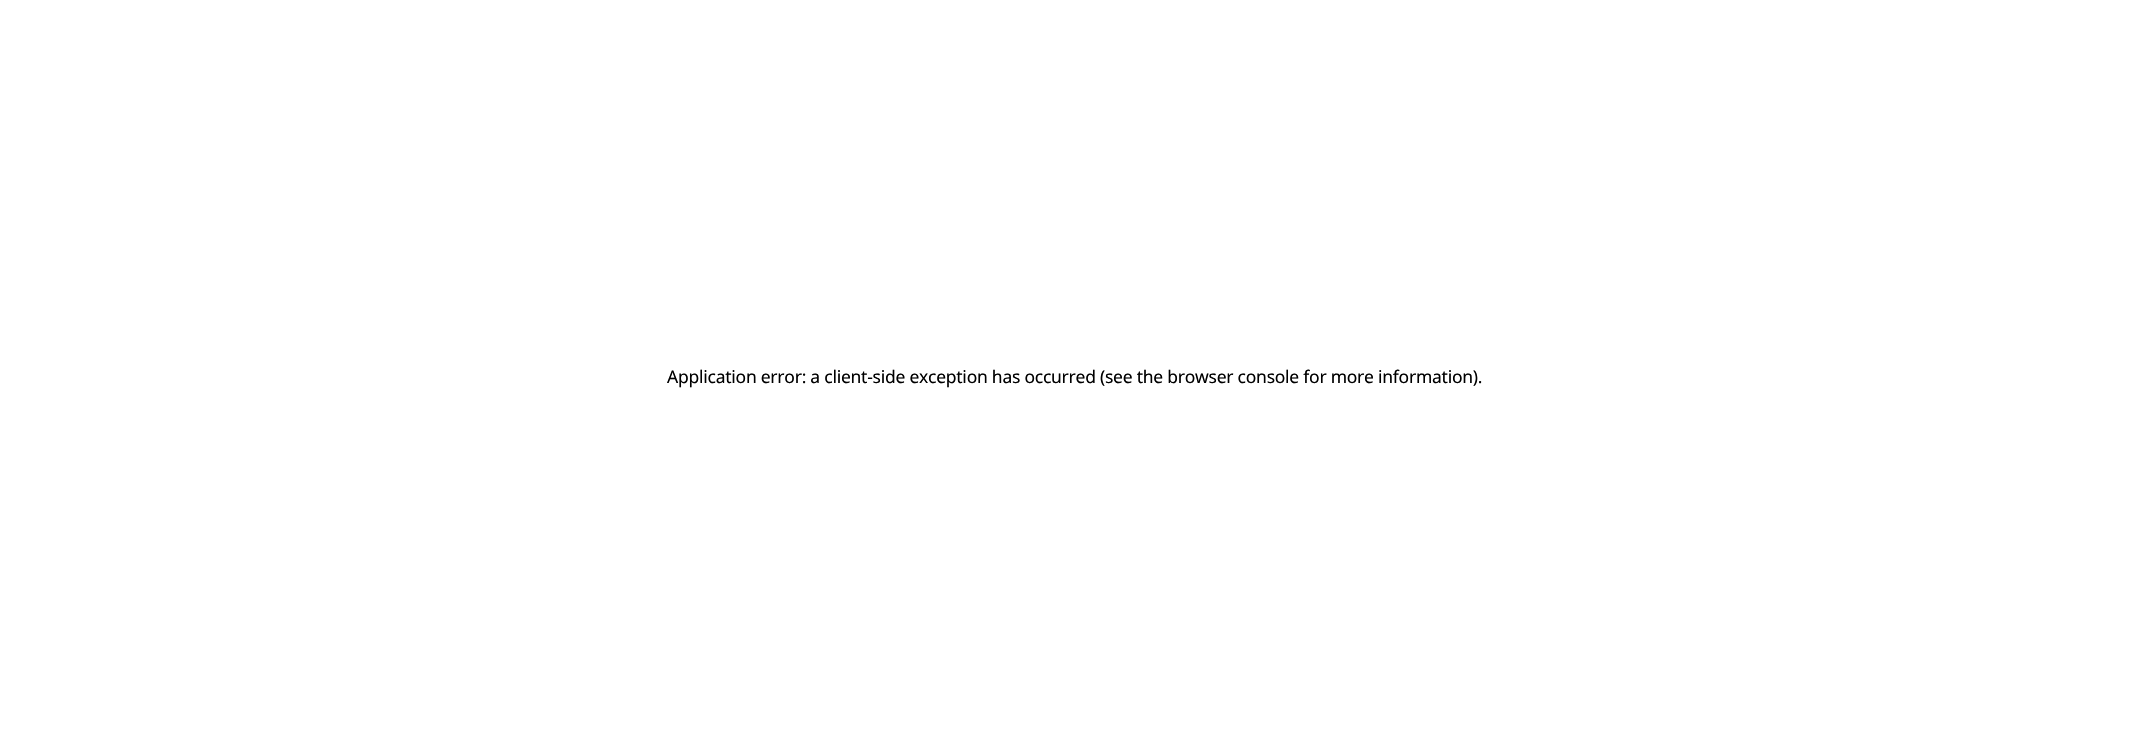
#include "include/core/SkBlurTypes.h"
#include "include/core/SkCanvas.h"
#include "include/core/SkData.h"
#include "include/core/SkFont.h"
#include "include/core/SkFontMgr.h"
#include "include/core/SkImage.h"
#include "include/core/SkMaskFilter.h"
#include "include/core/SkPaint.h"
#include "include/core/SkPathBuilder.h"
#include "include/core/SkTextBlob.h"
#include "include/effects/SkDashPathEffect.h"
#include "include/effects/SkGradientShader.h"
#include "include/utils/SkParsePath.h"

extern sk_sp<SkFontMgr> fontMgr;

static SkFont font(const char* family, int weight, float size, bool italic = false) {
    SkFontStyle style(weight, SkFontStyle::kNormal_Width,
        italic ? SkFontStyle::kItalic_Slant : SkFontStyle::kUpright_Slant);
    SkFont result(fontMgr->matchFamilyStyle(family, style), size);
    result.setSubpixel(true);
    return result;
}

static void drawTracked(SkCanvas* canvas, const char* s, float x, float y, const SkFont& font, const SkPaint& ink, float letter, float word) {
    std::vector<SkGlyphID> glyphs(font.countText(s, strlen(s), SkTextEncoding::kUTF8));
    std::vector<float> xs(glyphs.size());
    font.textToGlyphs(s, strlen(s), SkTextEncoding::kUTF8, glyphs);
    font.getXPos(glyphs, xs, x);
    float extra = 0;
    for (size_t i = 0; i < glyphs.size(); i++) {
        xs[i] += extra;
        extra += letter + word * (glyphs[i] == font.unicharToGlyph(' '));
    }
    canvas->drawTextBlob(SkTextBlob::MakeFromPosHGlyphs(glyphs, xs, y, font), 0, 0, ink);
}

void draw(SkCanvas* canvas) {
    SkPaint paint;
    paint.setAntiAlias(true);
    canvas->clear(0xFFFFFFFF);
    SkFont font1 = font("Noto Sans", 400, 17.5f);
    paint.setColor(0xFF000000);
    drawTracked(canvas, "Application error: a client-side exception has occurred (see the browser console for more information).", 667, 383, font1, paint, -0.25f, 0);
}
